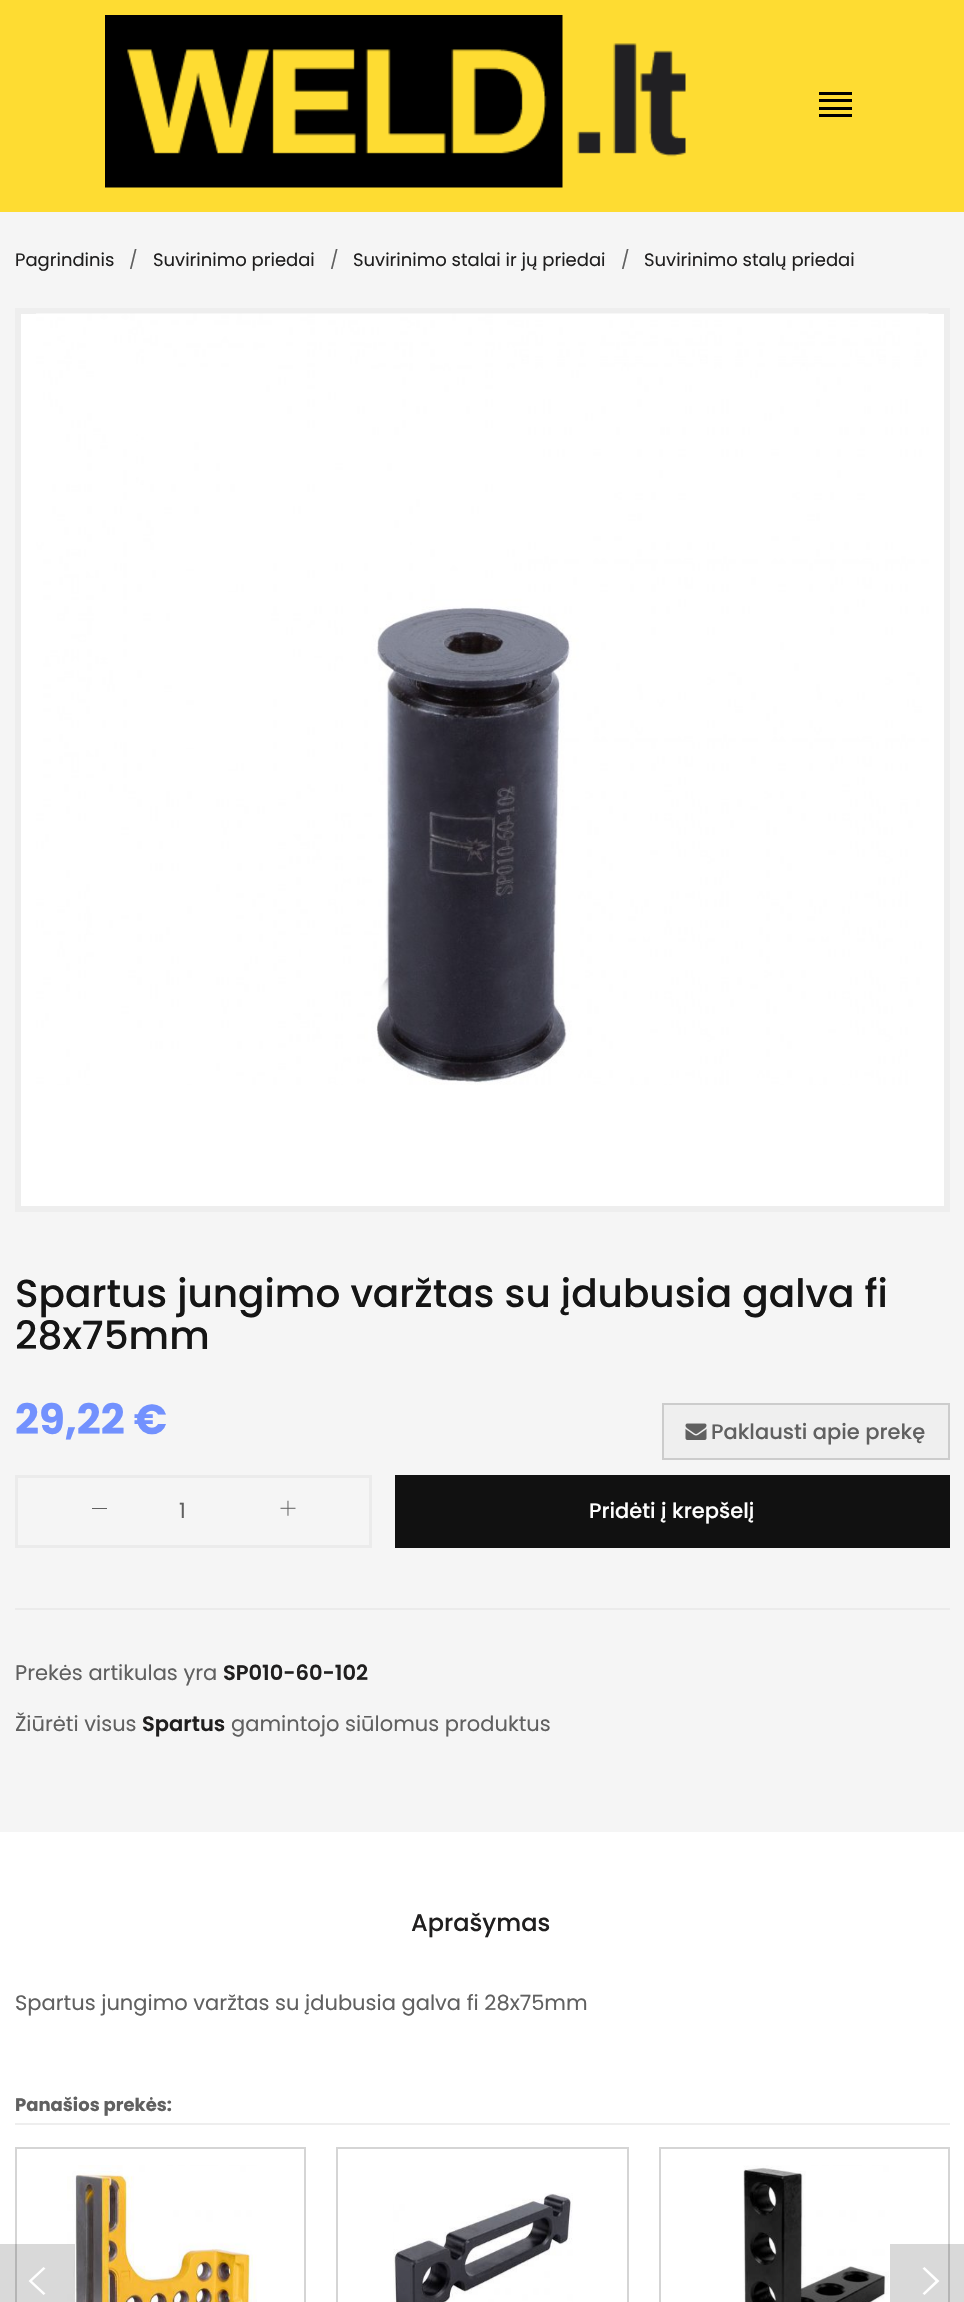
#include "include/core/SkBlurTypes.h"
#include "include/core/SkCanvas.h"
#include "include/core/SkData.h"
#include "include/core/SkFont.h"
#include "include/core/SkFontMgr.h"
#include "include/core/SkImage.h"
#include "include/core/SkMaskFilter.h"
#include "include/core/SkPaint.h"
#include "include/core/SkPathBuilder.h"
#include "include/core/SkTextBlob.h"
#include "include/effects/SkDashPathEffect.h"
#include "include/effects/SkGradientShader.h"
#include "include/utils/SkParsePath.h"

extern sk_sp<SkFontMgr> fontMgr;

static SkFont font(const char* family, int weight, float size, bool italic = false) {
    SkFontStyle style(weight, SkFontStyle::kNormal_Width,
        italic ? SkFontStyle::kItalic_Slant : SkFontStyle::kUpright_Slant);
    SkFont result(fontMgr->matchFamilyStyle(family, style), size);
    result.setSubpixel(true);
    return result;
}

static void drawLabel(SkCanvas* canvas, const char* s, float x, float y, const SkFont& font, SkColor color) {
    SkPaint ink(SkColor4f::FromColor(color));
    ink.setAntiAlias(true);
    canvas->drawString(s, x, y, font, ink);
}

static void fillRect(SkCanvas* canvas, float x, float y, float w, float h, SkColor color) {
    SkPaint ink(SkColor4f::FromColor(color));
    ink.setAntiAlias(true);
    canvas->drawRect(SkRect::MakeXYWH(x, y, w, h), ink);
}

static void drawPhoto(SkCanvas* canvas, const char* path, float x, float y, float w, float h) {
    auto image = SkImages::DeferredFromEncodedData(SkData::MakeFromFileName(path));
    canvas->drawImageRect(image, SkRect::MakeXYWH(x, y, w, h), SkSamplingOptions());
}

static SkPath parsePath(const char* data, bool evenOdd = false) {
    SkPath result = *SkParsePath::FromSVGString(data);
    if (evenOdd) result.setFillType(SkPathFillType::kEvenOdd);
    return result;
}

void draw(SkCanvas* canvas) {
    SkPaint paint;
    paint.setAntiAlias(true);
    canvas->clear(0xFFFFFFFF);
    fillRect(canvas, 0, 0, 964, 212, 0xFFFEDC32);
    drawPhoto(canvas, "assets/img1.png", 105, 15, 581, 173);
    fillRect(canvas, 819, 92, 33, 3, 0xFF000000);
    fillRect(canvas, 819, 99, 33, 3, 0xFF000000);
    fillRect(canvas, 819, 107, 33, 3, 0xFF000000);
    fillRect(canvas, 819, 114, 33, 3, 0xFF000000);
    fillRect(canvas, 0, 212, 964, 1620, 0xFFF5F5F5);
    SkFont font1 = font("Poppins", 400, 18);
    drawLabel(canvas, "Pagrindinis", 15, 266, font1, 0xFF201F1F);
    drawLabel(canvas, "/", 129, 266, font1, 0xFF606060);
    drawLabel(canvas, "Suvirinimo priedai", 153, 266, font1, 0xFF201F1F);
    drawLabel(canvas, "/", 330, 266, font1, 0xFF606060);
    drawLabel(canvas, "Suvirinimo stalai ir jų priedai", 353, 266, font1, 0xFF201F1F);
    drawLabel(canvas, "/", 621, 266, font1, 0xFF606060);
    drawLabel(canvas, "Suvirinimo stalų priedai", 644, 266, font1, 0xFF201F1F);
    paint.setColor(0xFFFFFFFF);
    canvas->drawRect(SkRect::MakeXYWH(18, 311, 929, 898), paint);
    paint.setStroke(true);
    paint.setStrokeWidth(6);
    paint.setColor(0xFFEEEEEE);
    canvas->drawRect(SkRect::MakeXYWH(18, 311, 929, 898), paint);
    drawPhoto(canvas, "assets/img2.png", 36, 313, 893, 772);
    SkFont font2 = font("Poppins", 500, 39);
    drawLabel(canvas, "Spartus jungimo varžtas su įdubusia galva fi", 15, 1307, font2, 0xFF151515);
    drawLabel(canvas, "28x75mm", 15, 1349, font2, 0xFF151515);
    SkFont font3 = font("Poppins", 700, 42);
    drawLabel(canvas, "29,22 €", 15, 1434, font3, 0xFF7291FE);
    paint.setStroke(false);
    paint.setColor(0xFFEFEFEF);
    canvas->drawRect(SkRect::MakeXYWH(663, 1404, 286, 55), paint);
    paint.setStroke(true);
    paint.setStrokeWidth(2);
    paint.setColor(0xFFCCCCCC);
    canvas->drawRect(SkRect::MakeXYWH(663, 1404, 286, 55), paint);
    drawPhoto(canvas, "assets/img3.png", 685, 1423, 22, 17);
    SkFont font4 = font("Poppins", 500, 21);
    drawLabel(canvas, "Paklausti apie prekę", 711, 1439, font4, 0xFF606060);
    paint.setStrokeWidth(3);
    paint.setColor(0xFFEBEBEB);
    canvas->drawRect(SkRect::MakeXYWH(16.5f, 1476.5f, 354, 70), paint);
    fillRect(canvas, 92, 1508, 15, 1, 0xFF606060);
    SkFont font5 = font("Poppins", 400, 21);
    drawLabel(canvas, "1", 179, 1518, font5, 0xFF606060);
    drawPhoto(canvas, "assets/img4.png", 280, 1500, 16, 16);
    fillRect(canvas, 395, 1475, 555, 73, 0xFF111111);
    drawLabel(canvas, "Pridėti į krepšelį", 589, 1518, font4, 0xFFFFFFFF);
    fillRect(canvas, 15, 1608, 935, 2, 0xFFEBEBEB);
    drawLabel(canvas, "Prekės artikulas yra", 15, 1680, font5, 0xFF606060);
    SkFont font6 = font("Poppins", 600, 21);
    drawLabel(canvas, "SP010-60-102", 223, 1680, font6, 0xFF201F1F);
    drawLabel(canvas, "Žiūrėti visus", 15, 1731, font5, 0xFF606060);
    drawLabel(canvas, "Spartus", 142, 1731, font6, 0xFF201F1F);
    drawLabel(canvas, "gamintojo siūlomus produktus", 231, 1731, font5, 0xFF606060);
    SkFont font7 = font("Poppins", 500, 24);
    drawLabel(canvas, "Aprašymas", 411, 1931, font7, 0xFF201F1F);
    drawLabel(canvas, "Spartus jungimo varžtas su įdubusia galva fi 28x75mm", 15, 2010, font5, 0xFF606060);
    fillRect(canvas, 15, 2123, 935, 2, 0xFFEEEEEE);
    SkFont font8 = font("Poppins", 700, 18);
    drawLabel(canvas, "Panašios prekės:", 15, 2111, font8, 0xFF606060);
    paint.setStrokeWidth(2);
    paint.setColor(0xFFD5D5D5);
    canvas->drawRect(SkRect::MakeXYWH(16, 2148, 289, 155), paint);
    drawPhoto(canvas, "assets/img5.png", 67, 2165, 190, 137);
    canvas->drawRect(SkRect::MakeXYWH(337, 2148, 291, 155), paint);
    drawPhoto(canvas, "assets/img6.png", 393, 2193, 180, 109);
    canvas->drawRect(SkRect::MakeXYWH(660, 2148, 289, 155), paint);
    drawPhoto(canvas, "assets/img7.png", 743, 2165, 146, 137);
    fillRect(canvas, 0, 2244, 75, 58, 0x26000000);
    paint.setStroke(false);
    paint.setColor(0xFFFFFFFF);
    canvas->drawPath(parsePath("M45.5 2268.5L32 2281L45.5 2293.5L43.5 2295L28.5 2281L43.5 2267Z"), paint);
    fillRect(canvas, 890, 2244, 74, 58, 0x26000000);
    canvas->drawPath(parsePath("M922.5 2268.5L924.5 2267L939.5 2281L924.5 2295L922.5 2293.5L935.5 2281Z"), paint);
}
